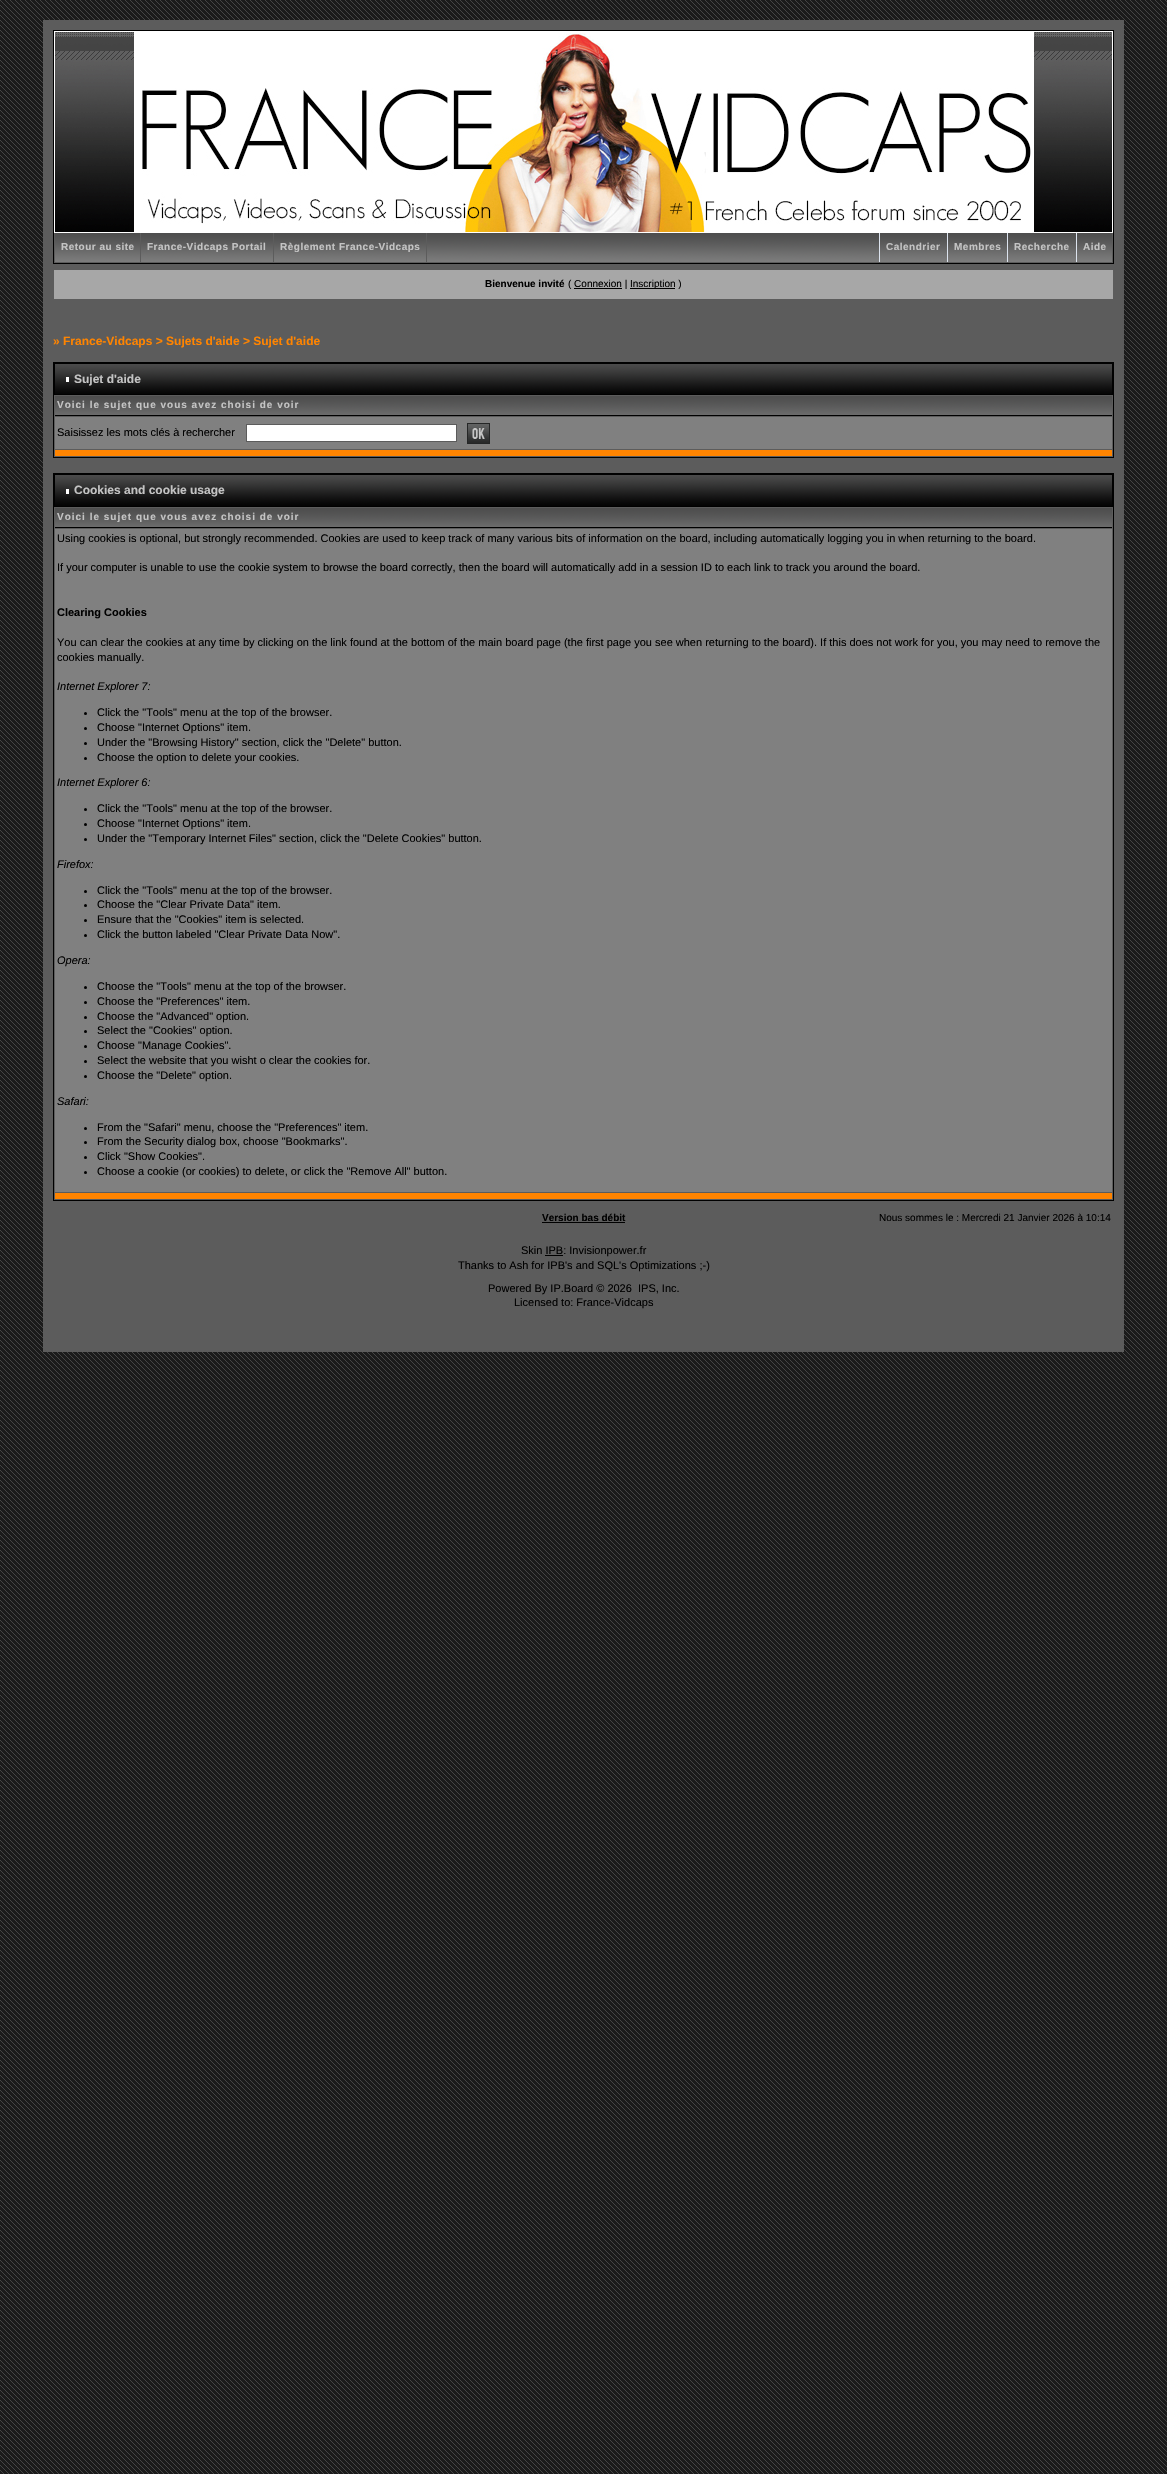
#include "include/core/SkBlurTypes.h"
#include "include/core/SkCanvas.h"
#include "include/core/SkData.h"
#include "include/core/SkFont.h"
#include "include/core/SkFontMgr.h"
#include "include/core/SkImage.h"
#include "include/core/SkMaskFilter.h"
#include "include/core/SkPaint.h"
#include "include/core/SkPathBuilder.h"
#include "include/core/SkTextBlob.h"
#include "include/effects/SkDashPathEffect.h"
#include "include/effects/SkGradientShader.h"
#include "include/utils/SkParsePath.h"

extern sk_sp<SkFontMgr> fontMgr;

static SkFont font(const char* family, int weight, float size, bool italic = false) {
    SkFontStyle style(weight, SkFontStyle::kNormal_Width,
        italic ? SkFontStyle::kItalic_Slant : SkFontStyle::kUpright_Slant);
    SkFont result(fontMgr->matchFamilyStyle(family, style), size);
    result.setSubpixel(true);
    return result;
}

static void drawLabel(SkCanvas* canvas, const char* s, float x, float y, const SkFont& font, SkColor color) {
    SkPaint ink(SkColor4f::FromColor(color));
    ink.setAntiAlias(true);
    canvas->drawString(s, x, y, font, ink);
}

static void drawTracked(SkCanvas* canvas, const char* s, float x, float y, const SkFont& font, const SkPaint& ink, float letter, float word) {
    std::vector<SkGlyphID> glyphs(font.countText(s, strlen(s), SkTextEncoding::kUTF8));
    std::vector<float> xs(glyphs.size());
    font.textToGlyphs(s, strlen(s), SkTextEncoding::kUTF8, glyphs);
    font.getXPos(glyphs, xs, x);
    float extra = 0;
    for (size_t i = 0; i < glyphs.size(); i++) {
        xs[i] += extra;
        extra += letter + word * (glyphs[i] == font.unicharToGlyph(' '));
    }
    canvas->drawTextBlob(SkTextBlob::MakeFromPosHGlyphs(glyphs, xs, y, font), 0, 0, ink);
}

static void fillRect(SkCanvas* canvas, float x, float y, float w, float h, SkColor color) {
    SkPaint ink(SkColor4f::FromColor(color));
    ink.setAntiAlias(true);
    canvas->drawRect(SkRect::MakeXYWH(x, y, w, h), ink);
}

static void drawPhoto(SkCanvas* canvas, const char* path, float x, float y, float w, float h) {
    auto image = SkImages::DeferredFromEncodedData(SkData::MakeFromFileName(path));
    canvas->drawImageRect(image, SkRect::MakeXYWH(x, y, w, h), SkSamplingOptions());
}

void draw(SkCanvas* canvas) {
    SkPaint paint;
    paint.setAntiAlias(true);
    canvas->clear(0xFFFFFFFF);
    drawPhoto(canvas, "assets/img1.png", 0, 0, 1167, 2474);
    fillRect(canvas, 43, 20, 1081, 1332, 0xFF5C5C5C);
    paint.setStroke(true);
    paint.setStrokeWidth(1);
    paint.setColor(0xFF000000);
    canvas->drawRect(SkRect::MakeXYWH(53.5f, 30.5f, 1060, 233), paint);
    drawPhoto(canvas, "assets/img2.png", 55, 32, 1057, 200);
    paint.setColor(0xFFFFFFFF);
    canvas->drawRect(SkRect::MakeXYWH(54.5f, 31.5f, 1058, 201), paint);
    drawPhoto(canvas, "assets/img3.png", 134, 32, 900, 200);
    drawPhoto(canvas, "assets/img4.png", 55, 233, 1057, 29);
    fillRect(canvas, 140, 233, 1, 29, 0xFF5C5C5C);
    SkFont font1 = font("Liberation Sans", 700, 10);
    paint.setStroke(false);
    paint.setColor(0xFFC4C4C4);
    drawTracked(canvas, "Retour au site", 61, 250, font1, paint, 0.5f, 0);
    fillRect(canvas, 273, 233, 1, 29, 0xFF5C5C5C);
    drawTracked(canvas, "France-Vidcaps Portail", 147, 250, font1, paint, 0.5f, 0);
    fillRect(canvas, 426, 233, 1, 29, 0xFF5C5C5C);
    drawTracked(canvas, "Règlement France-Vidcaps", 280, 250, font1, paint, 0.5f, 0);
    fillRect(canvas, 879, 233, 1, 29, 0xFFDCE3EE);
    drawTracked(canvas, "Calendrier", 886, 250, font1, paint, 0.5f, 0);
    fillRect(canvas, 947, 233, 1, 29, 0xFFDCE3EE);
    drawTracked(canvas, "Membres", 954, 250, font1, paint, 0.5f, 0);
    fillRect(canvas, 1007, 233, 1, 29, 0xFFDCE3EE);
    drawTracked(canvas, "Recherche", 1014, 250, font1, paint, 0.5f, 0);
    fillRect(canvas, 1076, 233, 1, 29, 0xFFDCE3EE);
    drawTracked(canvas, "Aide", 1083, 250, font1, paint, 0.5f, 0);
    fillRect(canvas, 54, 270, 1059, 29, 0xFFA7A7A7);
    drawLabel(canvas, "Bienvenue invité", 485, 287, font1, 0xFF000000);
    SkFont font2 = font("Liberation Sans", 400, 10);
    drawLabel(canvas, "( Connexion |", 568, 287, font2, 0xFF000000);
    fillRect(canvas, 630, 288, 45, 1, 0xFF000000);
    drawLabel(canvas, "Inscription )", 630, 287, font2, 0xFF000000);
    fillRect(canvas, 574, 288, 48, 1, 0xFF000000);
    SkFont font3 = font("Liberation Sans", 700, 12);
    drawLabel(canvas, "» France-Vidcaps > Sujets d'aide > Sujet d'aide", 53, 345, font3, 0xFFFF8400);
    paint.setStroke(true);
    paint.setColor(0xFF000000);
    canvas->drawRect(SkRect::MakeXYWH(53.5f, 362.5f, 1060, 95), paint);
    drawPhoto(canvas, "assets/img5.png", 55, 364, 1057, 30);
    canvas->drawRect(SkRect::MakeXYWH(54.5f, 363.5f, 1058, 31), paint);
    fillRect(canvas, 66, 377, 3, 5, 0xFFFFFFFF);
    drawLabel(canvas, "Sujet d'aide", 74, 383, font3, 0xFFC4C4C4);
    drawPhoto(canvas, "assets/img6.png", 55, 396, 1057, 19);
    fillRect(canvas, 55, 415, 1057, 1, 0xFF000000);
    paint.setStroke(false);
    paint.setColor(0xFFC4C4C4);
    drawTracked(canvas, "Voici le sujet que vous avez choisi de voir", 57, 408, font1, paint, 1, 0);
    fillRect(canvas, 55, 417, 1057, 32, 0xFF808080);
    SkFont font4 = font("Liberation Sans", 400, 11);
    drawLabel(canvas, "Saisissez les mots clés à rechercher", 57, 436, font4, 0xFF000000);
    paint.setColor(0xFFFFFFFF);
    canvas->drawRect(SkRect::MakeXYWH(246.5f, 424.5f, 210, 17), paint);
    paint.setStroke(true);
    paint.setColor(0xFF5C5C5C);
    canvas->drawRect(SkRect::MakeXYWH(246.5f, 424.5f, 210, 17), paint);
    drawPhoto(canvas, "assets/img7.png", 467, 423, 23, 21);
    fillRect(canvas, 55, 450, 1057, 6, 0xFFFF8400);
    paint.setColor(0xFF000000);
    canvas->drawRect(SkRect::MakeXYWH(53.5f, 473.5f, 1060, 727), paint);
    drawPhoto(canvas, "assets/img8.png", 55, 475, 1057, 31);
    canvas->drawRect(SkRect::MakeXYWH(54.5f, 474.5f, 1058, 32), paint);
    fillRect(canvas, 66, 489, 3, 5, 0xFFFFFFFF);
    drawLabel(canvas, "Cookies and cookie usage", 74, 494, font3, 0xFFC4C4C4);
    drawPhoto(canvas, "assets/img6.png", 55, 508, 1057, 19);
    fillRect(canvas, 55, 527, 1057, 1, 0xFF000000);
    paint.setStroke(false);
    paint.setColor(0xFFC4C4C4);
    drawTracked(canvas, "Voici le sujet que vous avez choisi de voir", 57, 520, font1, paint, 1, 0);
    fillRect(canvas, 55, 529, 1057, 663, 0xFF808080);
    drawLabel(canvas, "Using cookies is optional, but strongly recommended. Cookies are used to keep track of many various bits of information on the board, including automatically logging you in when returning to the board.", 57, 542, font4, 0xFF000000);
    drawLabel(canvas, "If your computer is unable to use the cookie system to browse the board correctly, then the board will automatically add in a session ID to each link to track you around the board.", 57, 571, font4, 0xFF000000);
    SkFont font5 = font("Liberation Sans", 700, 11);
    drawLabel(canvas, "Clearing Cookies", 57, 616, font5, 0xFF000000);
    drawLabel(canvas, "You can clear the cookies at any time by clicking on the link found at the bottom of the main board page (the first page you see when returning to the board). If this does not work for you, you may need to remove the", 57, 646, font4, 0xFF000000);
    drawLabel(canvas, "cookies manually.", 57, 661, font4, 0xFF000000);
    SkFont font6 = font("Liberation Sans", 400, 11, true);
    drawLabel(canvas, "Internet Explorer 7:", 57, 690, font6, 0xFF000000);
    paint.setColor(0xFF000000);
    canvas->drawCircle(85.5f, 713.5f, 1.5f, paint);
    drawLabel(canvas, "Click the \"Tools\" menu at the top of the browser.", 97, 716, font4, 0xFF000000);
    canvas->drawCircle(85.5f, 728.5f, 1.5f, paint);
    drawLabel(canvas, "Choose \"Internet Options\" item.", 97, 731, font4, 0xFF000000);
    canvas->drawCircle(85.5f, 743.5f, 1.5f, paint);
    drawLabel(canvas, "Under the \"Browsing History\" section, click the \"Delete\" button.", 97, 746, font4, 0xFF000000);
    canvas->drawCircle(85.5f, 758.5f, 1.5f, paint);
    drawLabel(canvas, "Choose the option to delete your cookies.", 97, 761, font4, 0xFF000000);
    drawLabel(canvas, "Internet Explorer 6:", 57, 786, font6, 0xFF000000);
    canvas->drawCircle(85.5f, 809.5f, 1.5f, paint);
    drawLabel(canvas, "Click the \"Tools\" menu at the top of the browser.", 97, 812, font4, 0xFF000000);
    canvas->drawCircle(85.5f, 824.5f, 1.5f, paint);
    drawLabel(canvas, "Choose \"Internet Options\" item.", 97, 827, font4, 0xFF000000);
    canvas->drawCircle(85.5f, 839.5f, 1.5f, paint);
    drawLabel(canvas, "Under the \"Temporary Internet Files\" section, click the \"Delete Cookies\" button.", 97, 842, font4, 0xFF000000);
    drawLabel(canvas, "Firefox:", 57, 868, font6, 0xFF000000);
    canvas->drawCircle(85.5f, 891.5f, 1.5f, paint);
    drawLabel(canvas, "Click the \"Tools\" menu at the top of the browser.", 97, 894, font4, 0xFF000000);
    canvas->drawCircle(85.5f, 905.5f, 1.5f, paint);
    drawLabel(canvas, "Choose the \"Clear Private Data\" item.", 97, 908, font4, 0xFF000000);
    canvas->drawCircle(85.5f, 920.5f, 1.5f, paint);
    drawLabel(canvas, "Ensure that the \"Cookies\" item is selected.", 97, 923, font4, 0xFF000000);
    canvas->drawCircle(85.5f, 935.5f, 1.5f, paint);
    drawLabel(canvas, "Click the button labeled \"Clear Private Data Now\".", 97, 938, font4, 0xFF000000);
    drawLabel(canvas, "Opera:", 57, 964, font6, 0xFF000000);
    canvas->drawCircle(85.5f, 987.5f, 1.5f, paint);
    drawLabel(canvas, "Choose the \"Tools\" menu at the top of the browser.", 97, 990, font4, 0xFF000000);
    canvas->drawCircle(85.5f, 1002.5f, 1.5f, paint);
    drawLabel(canvas, "Choose the \"Preferences\" item.", 97, 1005, font4, 0xFF000000);
    canvas->drawCircle(85.5f, 1017.5f, 1.5f, paint);
    drawLabel(canvas, "Choose the \"Advanced\" option.", 97, 1020, font4, 0xFF000000);
    canvas->drawCircle(85.5f, 1031.5f, 1.5f, paint);
    drawLabel(canvas, "Select the \"Cookies\" option.", 97, 1034, font4, 0xFF000000);
    canvas->drawCircle(85.5f, 1046.5f, 1.5f, paint);
    drawLabel(canvas, "Choose \"Manage Cookies\".", 97, 1049, font4, 0xFF000000);
    canvas->drawCircle(85.5f, 1061.5f, 1.5f, paint);
    drawLabel(canvas, "Select the website that you wisht o clear the cookies for.", 97, 1064, font4, 0xFF000000);
    canvas->drawCircle(85.5f, 1076.5f, 1.5f, paint);
    drawLabel(canvas, "Choose the \"Delete\" option.", 97, 1079, font4, 0xFF000000);
    drawLabel(canvas, "Safari:", 57, 1105, font6, 0xFF000000);
    canvas->drawCircle(85.5f, 1128.5f, 1.5f, paint);
    drawLabel(canvas, "From the \"Safari\" menu, choose the \"Preferences\" item.", 97, 1131, font4, 0xFF000000);
    canvas->drawCircle(85.5f, 1142.5f, 1.5f, paint);
    drawLabel(canvas, "From the Security dialog box, choose \"Bookmarks\".", 97, 1145, font4, 0xFF000000);
    canvas->drawCircle(85.5f, 1157.5f, 1.5f, paint);
    drawLabel(canvas, "Click \"Show Cookies\".", 97, 1160, font4, 0xFF000000);
    canvas->drawCircle(85.5f, 1172.5f, 1.5f, paint);
    drawLabel(canvas, "Choose a cookie (or cookies) to delete, or click the \"Remove All\" button.", 97, 1175, font4, 0xFF000000);
    fillRect(canvas, 55, 1193, 1057, 6, 0xFFFF8400);
    drawLabel(canvas, "Version bas débit", 542, 1221, font1, 0xFF000000);
    fillRect(canvas, 542, 1222, 83, 1, 0xFF000000);
    drawLabel(canvas, "Nous sommes le : Mercredi 21 Janvier 2026 à 10:14", 879, 1221, font2, 0xFF000000);
    drawLabel(canvas, "Skin IPB: Invisionpower.fr", 521, 1254, font4, 0xFF000000);
    fillRect(canvas, 545, 1255, 18, 1, 0xFF000000);
    drawLabel(canvas, "Thanks to Ash for IPB's and SQL's Optimizations ;-)", 458, 1269, font4, 0xFF000000);
    drawLabel(canvas, "Powered By IP.Board © 2026", 488, 1292, font4, 0xFF000000);
    drawLabel(canvas, "IPS, Inc.", 638, 1292, font4, 0xFF000000);
    drawLabel(canvas, "Licensed to: France-Vidcaps", 514, 1306, font4, 0xFF000000);
}
